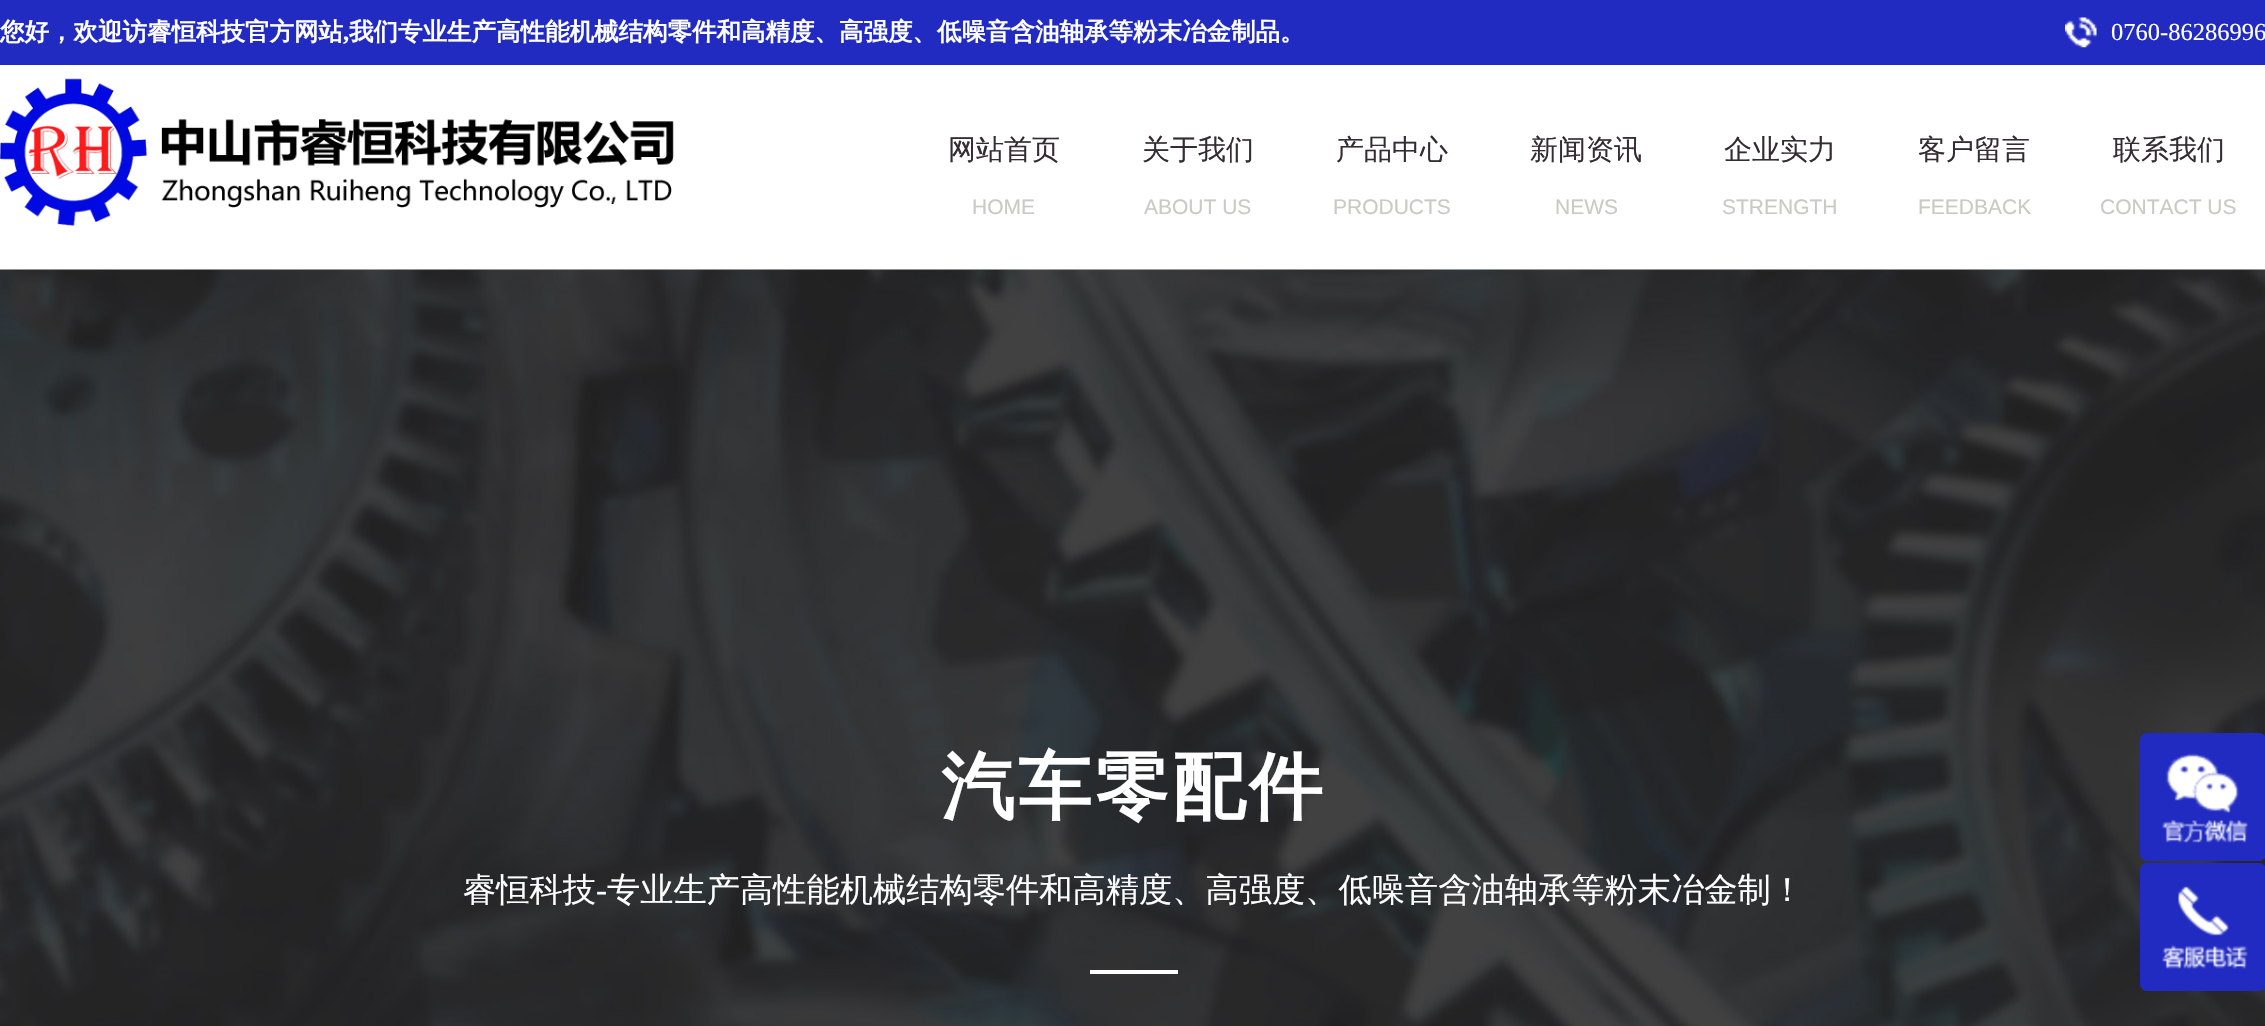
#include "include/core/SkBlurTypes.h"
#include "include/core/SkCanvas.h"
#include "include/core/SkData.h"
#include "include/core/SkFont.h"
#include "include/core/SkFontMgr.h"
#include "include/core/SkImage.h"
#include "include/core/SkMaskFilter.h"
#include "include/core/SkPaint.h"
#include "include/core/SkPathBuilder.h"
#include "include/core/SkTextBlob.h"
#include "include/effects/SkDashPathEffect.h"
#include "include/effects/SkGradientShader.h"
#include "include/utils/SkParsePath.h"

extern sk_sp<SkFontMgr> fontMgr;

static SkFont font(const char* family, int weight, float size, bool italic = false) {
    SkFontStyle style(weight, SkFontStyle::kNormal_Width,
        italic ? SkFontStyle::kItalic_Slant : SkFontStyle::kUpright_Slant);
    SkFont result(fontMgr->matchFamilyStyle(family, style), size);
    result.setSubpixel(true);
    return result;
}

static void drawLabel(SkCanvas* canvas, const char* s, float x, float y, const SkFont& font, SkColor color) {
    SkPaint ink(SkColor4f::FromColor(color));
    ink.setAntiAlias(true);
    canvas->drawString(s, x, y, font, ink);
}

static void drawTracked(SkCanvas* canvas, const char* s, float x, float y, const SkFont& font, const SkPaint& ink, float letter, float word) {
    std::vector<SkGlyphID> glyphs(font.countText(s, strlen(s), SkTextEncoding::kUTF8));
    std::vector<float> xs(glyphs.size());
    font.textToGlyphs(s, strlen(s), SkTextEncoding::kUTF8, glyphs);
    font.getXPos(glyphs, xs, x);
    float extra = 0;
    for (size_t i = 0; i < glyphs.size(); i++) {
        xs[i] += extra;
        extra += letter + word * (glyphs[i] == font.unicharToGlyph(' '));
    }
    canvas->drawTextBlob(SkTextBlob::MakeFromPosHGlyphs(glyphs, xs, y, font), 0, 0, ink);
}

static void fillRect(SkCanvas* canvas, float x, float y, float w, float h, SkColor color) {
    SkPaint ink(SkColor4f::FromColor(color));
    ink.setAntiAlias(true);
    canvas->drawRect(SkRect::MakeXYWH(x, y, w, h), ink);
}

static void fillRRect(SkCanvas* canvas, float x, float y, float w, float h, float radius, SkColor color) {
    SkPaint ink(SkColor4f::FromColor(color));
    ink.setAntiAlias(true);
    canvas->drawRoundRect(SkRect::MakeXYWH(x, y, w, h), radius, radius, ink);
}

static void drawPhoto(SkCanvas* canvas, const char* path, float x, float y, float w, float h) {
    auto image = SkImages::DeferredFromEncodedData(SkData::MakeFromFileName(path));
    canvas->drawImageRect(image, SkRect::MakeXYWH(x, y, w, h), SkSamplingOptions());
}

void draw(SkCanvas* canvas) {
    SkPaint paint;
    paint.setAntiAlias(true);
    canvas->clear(0xFFFFFFFF);
    fillRect(canvas, 0, 0, 2265, 65, 0xFF212BC1);
    SkFont font1 = font("WenQuanYi Zen Hei", 700, 24.5f);
    drawLabel(canvas, "您好，欢迎访睿恒科技官方网站", 0, 40, font1, 0xFFFFFFFF);
    SkFont font2 = font("Liberation Serif", 700, 24.5f);
    drawLabel(canvas, ",", 343, 40, font2, 0xFFFFFFFF);
    drawLabel(canvas, "我们专业生产高性能机械结构零件和高精度、高强度、低噪音含油轴承等粉末冶金制品。", 349, 40, font1, 0xFFFFFFFF);
    drawPhoto(canvas, "assets/img1.png", 2065, 17, 32, 31);
    SkFont font3 = font("Liberation Serif", 400, 24.5f);
    drawLabel(canvas, "0760-86286996", 2111, 40, font3, 0xFFFFFFFF);
    drawPhoto(canvas, "assets/img2.png", 0, 78, 674, 148);
    SkFont font4 = font("WenQuanYi Zen Hei", 500, 28);
    drawLabel(canvas, "网站首页", 948, 159, font4, 0xFF352B33);
    SkFont font5 = font("Liberation Sans", 400, 21);
    drawLabel(canvas, "HOME", 972, 214, font5, 0xFFC9C9C7);
    drawLabel(canvas, "关于我们", 1142, 159, font4, 0xFF352B33);
    drawLabel(canvas, "ABOUT US", 1144, 214, font5, 0xFFC9C9C7);
    drawLabel(canvas, "产品中心", 1336, 159, font4, 0xFF352B33);
    drawLabel(canvas, "PRODUCTS", 1333, 214, font5, 0xFFC9C9C7);
    drawLabel(canvas, "新闻资讯", 1530, 159, font4, 0xFF352B33);
    drawLabel(canvas, "NEWS", 1555, 214, font5, 0xFFC9C9C7);
    drawLabel(canvas, "企业实力", 1724, 159, font4, 0xFF352B33);
    drawLabel(canvas, "STRENGTH", 1722, 214, font5, 0xFFC9C9C7);
    drawLabel(canvas, "客户留言", 1918, 159, font4, 0xFF352B33);
    drawLabel(canvas, "FEEDBACK", 1918, 214, font5, 0xFFC9C9C7);
    drawLabel(canvas, "联系我们", 2113, 159, font4, 0xFF352B33);
    drawLabel(canvas, "CONTACT US", 2100, 214, font5, 0xFFC9C9C7);
    drawPhoto(canvas, "assets/img3.png", 0, 269, 2265, 757);
    SkFont font6 = font("WenQuanYi Zen Hei", 700, 73.5f);
    paint.setColor(0xFFFFFFFF);
    drawTracked(canvas, "汽车零配件", 941, 812, font6, paint, 3.5f, 0);
    SkFont font7 = font("WenQuanYi Zen Hei", 500, 33.25f);
    drawLabel(canvas, "睿恒科技", 463, 901, font7, 0xFFFFFFFF);
    SkFont font8 = font("Liberation Serif", 400, 33.25f);
    drawLabel(canvas, "-", 596, 901, font8, 0xFFFFFFFF);
    drawLabel(canvas, "专业生产高性能机械结构零件和高精度、高强度、低噪音含油轴承等粉末冶金制！", 607, 901, font7, 0xFFFFFFFF);
    fillRect(canvas, 1090, 970, 88, 4, 0xFFFFFFFF);
    fillRRect(canvas, 2140, 733, 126, 128, 7, 0xFF212BC1);
    drawPhoto(canvas, "assets/img4.png", 2162, 753, 86, 90);
    fillRRect(canvas, 2140, 863, 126, 128, 7, 0xFF212BC1);
    drawPhoto(canvas, "assets/img5.png", 2162, 886, 86, 83);
}
